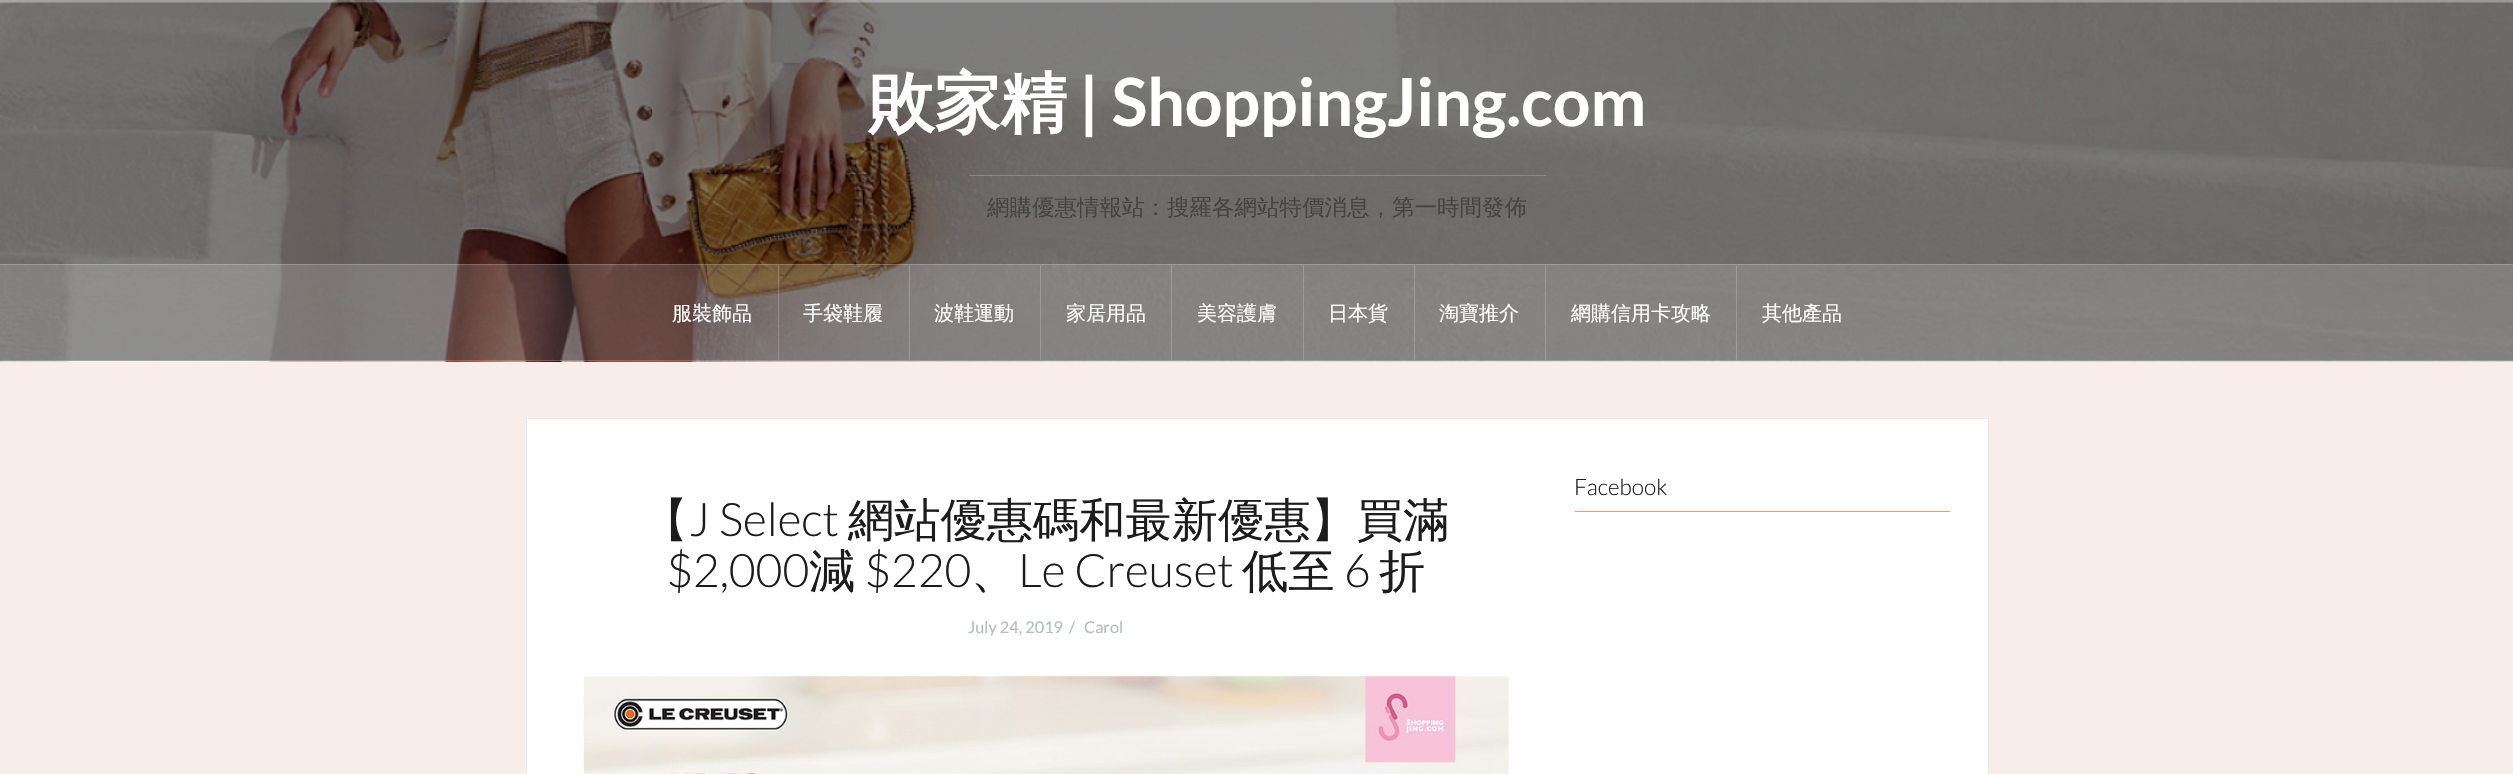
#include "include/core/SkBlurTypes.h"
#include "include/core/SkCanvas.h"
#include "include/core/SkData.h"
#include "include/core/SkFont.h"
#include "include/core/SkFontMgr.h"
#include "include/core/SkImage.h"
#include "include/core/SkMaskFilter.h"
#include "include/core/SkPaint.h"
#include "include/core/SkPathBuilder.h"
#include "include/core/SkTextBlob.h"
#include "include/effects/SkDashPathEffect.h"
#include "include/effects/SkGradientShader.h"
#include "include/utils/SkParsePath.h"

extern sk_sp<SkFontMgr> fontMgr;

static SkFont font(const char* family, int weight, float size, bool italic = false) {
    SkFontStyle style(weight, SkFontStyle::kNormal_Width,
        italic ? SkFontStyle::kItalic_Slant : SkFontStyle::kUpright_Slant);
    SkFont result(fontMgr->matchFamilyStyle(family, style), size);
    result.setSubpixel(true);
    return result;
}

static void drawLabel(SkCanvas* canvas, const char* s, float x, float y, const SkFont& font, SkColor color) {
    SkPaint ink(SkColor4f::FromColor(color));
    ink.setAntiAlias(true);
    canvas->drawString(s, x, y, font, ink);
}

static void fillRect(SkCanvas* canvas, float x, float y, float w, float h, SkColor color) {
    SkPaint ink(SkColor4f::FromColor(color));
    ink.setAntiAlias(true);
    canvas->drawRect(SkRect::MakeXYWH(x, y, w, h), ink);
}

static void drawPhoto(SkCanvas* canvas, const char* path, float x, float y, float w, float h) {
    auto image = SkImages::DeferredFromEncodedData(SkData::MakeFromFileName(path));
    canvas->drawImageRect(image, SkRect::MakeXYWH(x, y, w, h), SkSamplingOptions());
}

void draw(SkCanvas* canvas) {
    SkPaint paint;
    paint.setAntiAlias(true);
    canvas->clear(0xFFF8EDE9);
    drawPhoto(canvas, "assets/img1.png", 0, 0, 2513, 362);
    fillRect(canvas, 0, 0, 2513, 3, 0x26FFFFFF);
    fillRect(canvas, 0, 0, 2513, 1, 0x33FFFFFF);
    fillRect(canvas, 0, 1, 2513, 1, 0x33FFFFFF);
    SkFont font1 = font("WenQuanYi Zen Hei", 700, 66.25f);
    drawLabel(canvas, "敗家精", 868, 126, font1, 0xFFFFFFFF);
    SkFont font2 = font("Lato", 700, 66.25f);
    drawLabel(canvas, "| ShoppingJing.com", 1079, 126, font2, 0xFFFFFFFF);
    fillRect(canvas, 969, 175, 577, 1, 0x33FFFFFF);
    SkFont font3 = font("WenQuanYi Zen Hei", 500, 22.5f);
    drawLabel(canvas, "網購優惠情報站：搜羅各網站特價消息，第一時間發佈", 987, 215, font3, 0xFF444444);
    fillRect(canvas, 0, 264, 2513, 97, 0x26FFFFFF);
    fillRect(canvas, 0, 264, 2513, 1, 0x33FFFFFF);
    fillRect(canvas, 0, 360, 2513, 1, 0x33FFFFFF);
    fillRect(canvas, 778, 265, 1, 95, 0x33FFFFFF);
    SkFont font4 = font("WenQuanYi Zen Hei", 500, 20);
    drawLabel(canvas, "服裝飾品", 672, 320, font4, 0xFFFFFFFF);
    fillRect(canvas, 909, 265, 1, 95, 0x33FFFFFF);
    drawLabel(canvas, "手袋鞋履", 803, 320, font4, 0xFFFFFFFF);
    fillRect(canvas, 1040, 265, 1, 95, 0x33FFFFFF);
    drawLabel(canvas, "波鞋運動", 934, 320, font4, 0xFFFFFFFF);
    fillRect(canvas, 1171, 265, 1, 95, 0x33FFFFFF);
    drawLabel(canvas, "家居用品", 1066, 320, font4, 0xFFFFFFFF);
    fillRect(canvas, 1303, 265, 1, 95, 0x33FFFFFF);
    drawLabel(canvas, "美容護膚", 1197, 320, font4, 0xFFFFFFFF);
    fillRect(canvas, 1414, 265, 1, 95, 0x33FFFFFF);
    drawLabel(canvas, "日本貨", 1328, 320, font4, 0xFFFFFFFF);
    fillRect(canvas, 1545, 265, 1, 95, 0x33FFFFFF);
    drawLabel(canvas, "淘寶推介", 1439, 320, font4, 0xFFFFFFFF);
    fillRect(canvas, 1736, 265, 1, 95, 0x33FFFFFF);
    drawLabel(canvas, "網購信用卡攻略", 1571, 320, font4, 0xFFFFFFFF);
    drawLabel(canvas, "其他產品", 1762, 320, font4, 0xFFFFFFFF);
    paint.setColor(0xFFFFFFFF);
    canvas->drawRect(SkRect::MakeXYWH(526.5f, 418.5f, 1462, 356), paint);
    paint.setStroke(true);
    paint.setStrokeWidth(1);
    paint.setColor(0xFFE8E8E8);
    canvas->drawRect(SkRect::MakeXYWH(526.5f, 418.5f, 1462, 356), paint);
    fillRect(canvas, 1575, 511, 375, 1, 0xFFEF997F);
    SkFont font5 = font("Lato", 300, 22.5f);
    drawLabel(canvas, "Facebook", 1574, 495, font5, 0xFF1C1C1C);
    SkFont font6 = font("WenQuanYi Zen Hei", 500, 46.25f);
    drawLabel(canvas, "【", 642, 536, font6, 0xFF1C1C1C);
    SkFont font7 = font("Lato", 300, 46.25f);
    drawLabel(canvas, "J Select", 689, 536, font7, 0xFF1C1C1C);
    drawLabel(canvas, "網站優惠碼和最新優惠】買滿", 848, 536, font6, 0xFF1C1C1C);
    drawLabel(canvas, "$2,000", 666, 587, font7, 0xFF1C1C1C);
    drawLabel(canvas, "減", 809, 587, font6, 0xFF1C1C1C);
    drawLabel(canvas, "$220", 864, 587, font7, 0xFF1C1C1C);
    drawLabel(canvas, "、", 971, 587, font6, 0xFF1C1C1C);
    drawLabel(canvas, "Le Creuset", 1018, 587, font7, 0xFF1C1C1C);
    drawLabel(canvas, "低至", 1242, 587, font6, 0xFF1C1C1C);
    drawLabel(canvas, "6", 1344, 587, font7, 0xFF1C1C1C);
    drawLabel(canvas, "折", 1379, 587, font6, 0xFF1C1C1C);
    SkFont font8 = font("Lato", 400, 16.25f);
    drawLabel(canvas, "July 24, 2019", 968, 633, font8, 0xFFB5BBC5);
    drawLabel(canvas, "/", 1069, 633, font8, 0xFFB5BBC5);
    drawLabel(canvas, "Carol", 1084, 633, font8, 0xFFB5BBC5);
    drawPhoto(canvas, "assets/img2.png", 583, 676, 926, 98);
}
